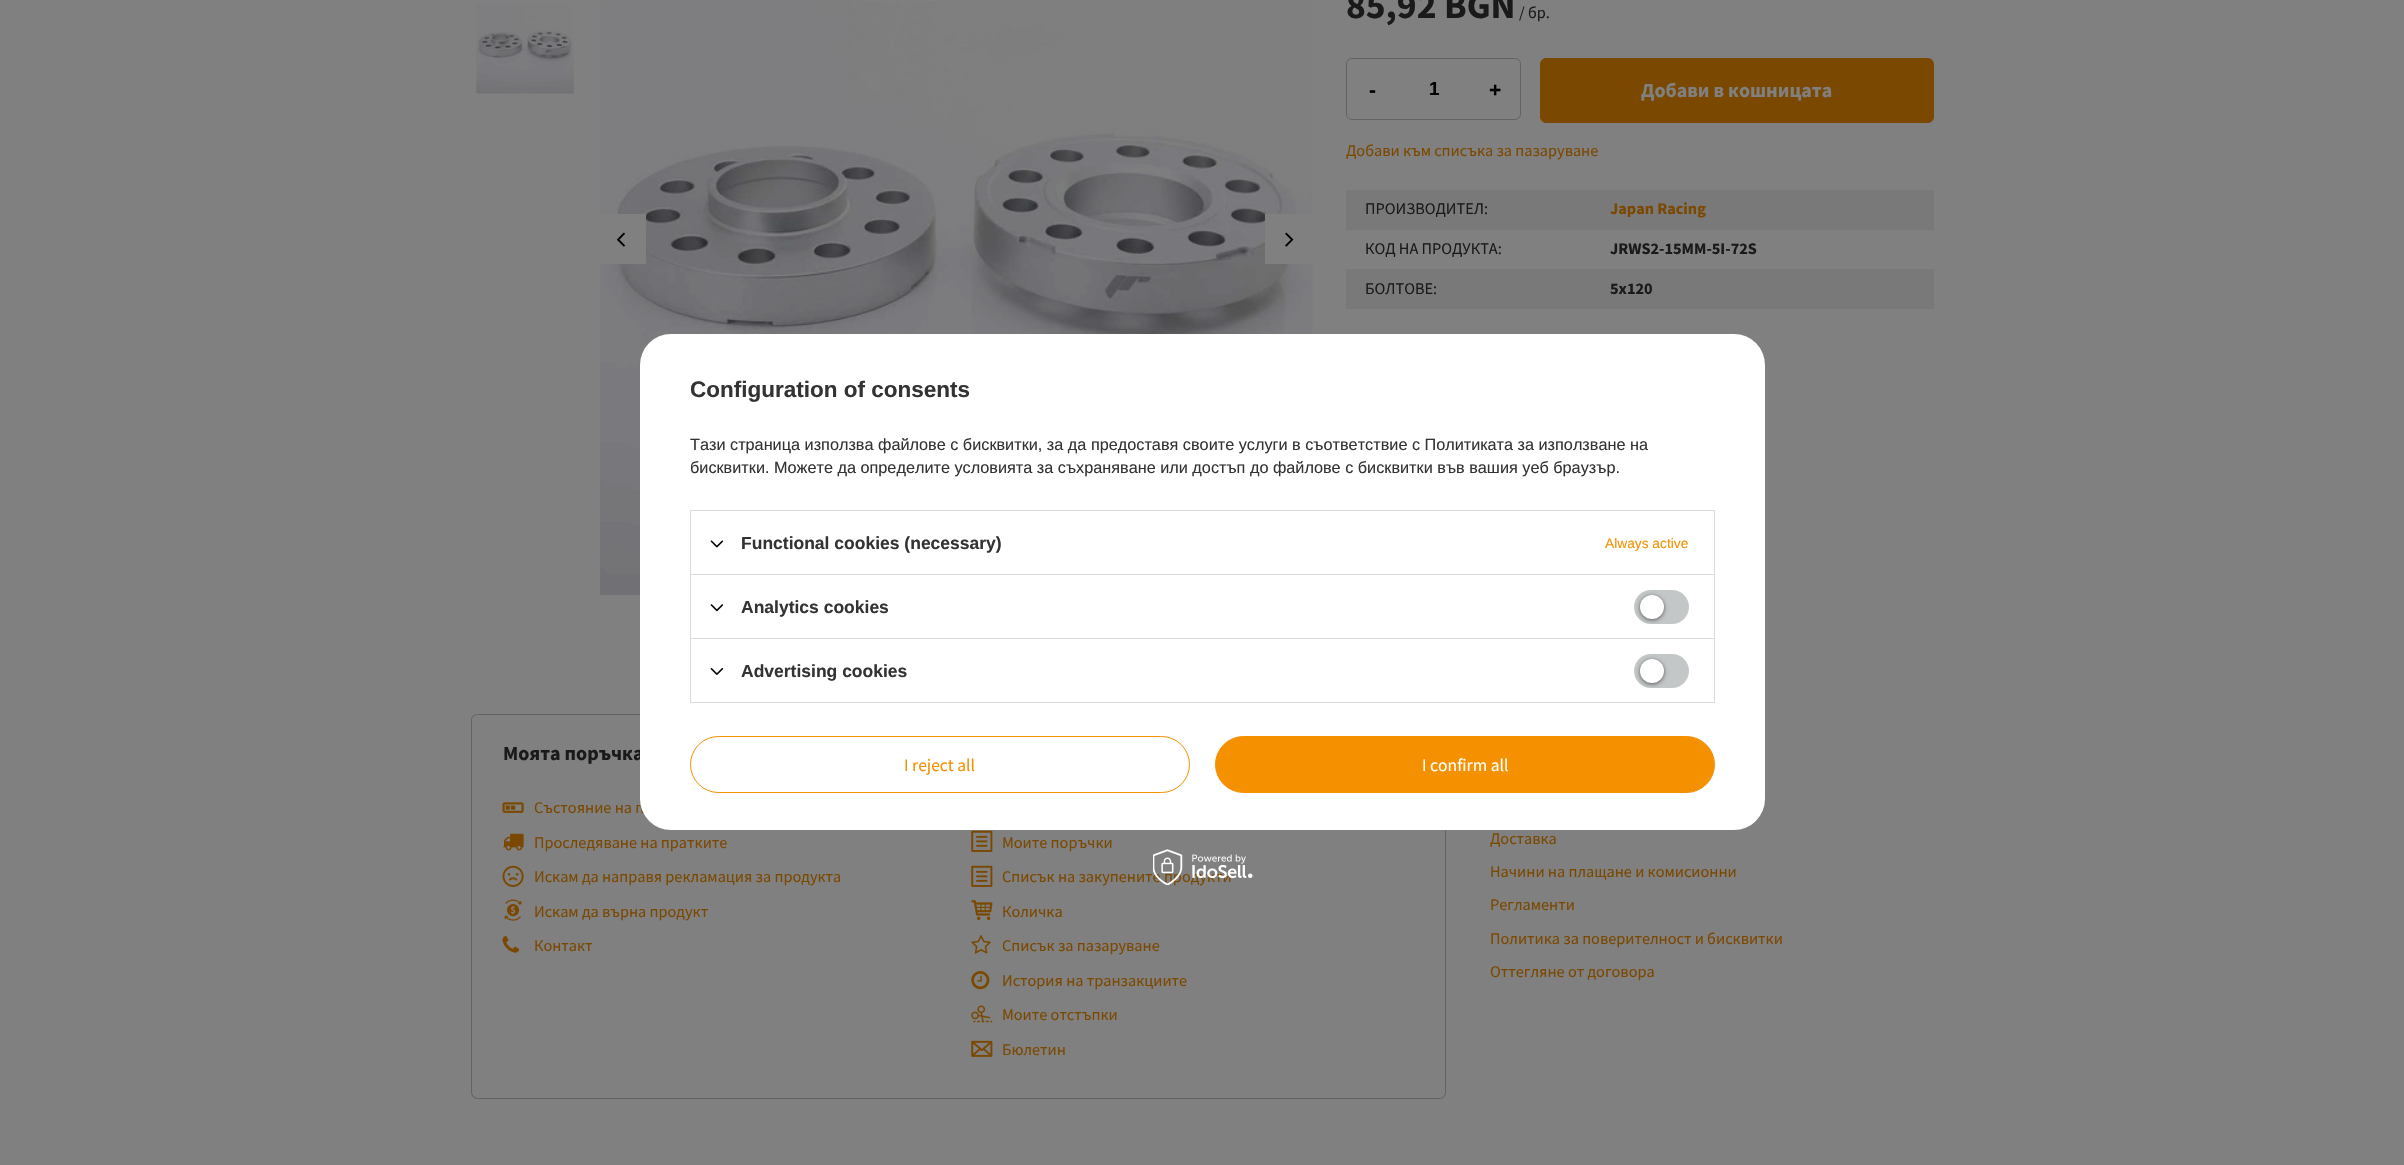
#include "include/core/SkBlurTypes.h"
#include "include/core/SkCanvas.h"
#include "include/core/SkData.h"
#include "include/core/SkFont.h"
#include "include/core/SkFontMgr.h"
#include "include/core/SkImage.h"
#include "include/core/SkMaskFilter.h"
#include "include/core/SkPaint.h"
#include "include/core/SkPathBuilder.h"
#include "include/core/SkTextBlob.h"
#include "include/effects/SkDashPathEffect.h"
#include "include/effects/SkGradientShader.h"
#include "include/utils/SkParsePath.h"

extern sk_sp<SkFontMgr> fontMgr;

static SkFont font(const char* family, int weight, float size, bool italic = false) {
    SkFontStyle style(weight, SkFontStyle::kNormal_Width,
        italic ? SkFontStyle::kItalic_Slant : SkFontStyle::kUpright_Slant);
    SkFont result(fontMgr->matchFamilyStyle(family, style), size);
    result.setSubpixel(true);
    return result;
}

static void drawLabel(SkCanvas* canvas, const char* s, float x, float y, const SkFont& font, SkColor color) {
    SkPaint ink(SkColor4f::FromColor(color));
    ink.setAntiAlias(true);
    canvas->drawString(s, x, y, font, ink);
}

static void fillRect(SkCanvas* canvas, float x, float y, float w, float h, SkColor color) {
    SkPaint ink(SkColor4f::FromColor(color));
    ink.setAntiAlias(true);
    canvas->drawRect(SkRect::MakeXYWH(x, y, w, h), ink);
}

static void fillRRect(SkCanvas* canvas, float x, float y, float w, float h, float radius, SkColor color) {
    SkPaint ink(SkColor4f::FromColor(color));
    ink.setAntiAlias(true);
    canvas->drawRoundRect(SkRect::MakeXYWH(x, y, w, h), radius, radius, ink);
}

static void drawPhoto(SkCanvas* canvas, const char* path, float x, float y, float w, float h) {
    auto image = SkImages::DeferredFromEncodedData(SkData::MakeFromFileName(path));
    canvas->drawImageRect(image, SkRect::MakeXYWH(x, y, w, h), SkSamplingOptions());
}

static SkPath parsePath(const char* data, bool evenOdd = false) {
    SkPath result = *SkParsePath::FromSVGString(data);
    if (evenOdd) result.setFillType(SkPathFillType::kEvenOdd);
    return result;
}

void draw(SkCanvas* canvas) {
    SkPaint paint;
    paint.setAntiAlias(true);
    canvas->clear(0xFF808080);
    drawPhoto(canvas, "assets/img1.png", 476, 4, 98, 90);
    drawPhoto(canvas, "assets/img2.png", 600, 1, 713, 594);
    fillRect(canvas, 600, 214, 46, 50, 0xFF808080);
    drawPhoto(canvas, "assets/img3.png", 616, 232, 9, 15);
    fillRect(canvas, 1265, 214, 48, 50, 0xFF808080);
    drawPhoto(canvas, "assets/img4.png", 1285, 232, 9, 15);
    SkFont font1 = font("Source Sans Pro", 700, 37.5f);
    drawLabel(canvas, "85,92 BGN", 1346, 18, font1, 0xFF1A1A1A);
    SkFont font2 = font("Source Sans Pro", 400, 16.25f);
    drawLabel(canvas, "/ бр.", 1519, 18, font2, 0xFF1A1A1A);
    paint.setStroke(true);
    paint.setStrokeWidth(1);
    paint.setColor(0xFF626464);
    canvas->drawRoundRect(SkRect::MakeXYWH(1346.5f, 58.5f, 174, 61), 5.5f, 5.5f, paint);
    SkFont font3 = font("Liberation Sans", 700, 21);
    drawLabel(canvas, "-", 1369, 97, font3, 0xFF000000);
    SkFont font4 = font("Liberation Sans", 700, 19);
    drawLabel(canvas, "1", 1429, 95, font4, 0xFF000000);
    drawLabel(canvas, "+", 1489, 97, font3, 0xFF000000);
    paint.setStroke(false);
    paint.setColor(0xFF7B4800);
    canvas->drawRoundRect(SkRect::MakeXYWH(1540.5f, 58.5f, 393, 64), 5.5f, 5.5f, paint);
    paint.setStroke(true);
    canvas->drawRoundRect(SkRect::MakeXYWH(1540.5f, 58.5f, 393, 64), 5.5f, 5.5f, paint);
    SkFont font5 = font("Source Sans Pro", 700, 20);
    drawLabel(canvas, "Добави в кошницата", 1641, 97, font5, 0xFF808080);
    drawLabel(canvas, "Добави към списъка за пазаруване", 1346, 156, font2, 0xFF7B4800);
    fillRect(canvas, 1346, 190, 588, 40, 0xFF797979);
    drawLabel(canvas, "ПРОИЗВОДИТЕЛ:", 1365, 214, font2, 0xFF1A1A1A);
    SkFont font6 = font("Source Sans Pro", 700, 16.25f);
    drawLabel(canvas, "Japan Racing", 1610, 214, font6, 0xFF7B4800);
    drawLabel(canvas, "КОД НА ПРОДУКТА:", 1365, 254, font2, 0xFF1A1A1A);
    drawLabel(canvas, "JRWS2-15MM-5I-72S", 1610, 254, font6, 0xFF1A1A1A);
    fillRect(canvas, 1346, 269, 588, 40, 0xFF797979);
    drawLabel(canvas, "БОЛТОВЕ:", 1365, 294, font2, 0xFF1A1A1A);
    drawLabel(canvas, "5x120", 1610, 294, font6, 0xFF1A1A1A);
    paint.setStroke(false);
    paint.setColor(0xFF626464);
    canvas->drawPath(parsePath("M478 714H959V1099H478C474 1099 471 1096 471 1092V720C471 717 474 714 478 714ZM478 715H959V1098H478C475 1098 472 1095 472 1092V720C472 717 475 715 478 715Z", true), paint);
    drawLabel(canvas, "Моята поръчка", 503, 760, font5, 0xFF1A1A1A);
    drawLabel(canvas, "Състояние на п", 534, 813, font2, 0xFF7B4800);
    canvas->drawPath(parsePath("M959 714H1440C1443 714 1446 717 1446 720V1092C1446 1096 1443 1099 1440 1099H959ZM959 715H1440C1443 715 1445 717 1445 720V1092C1445 1095 1443 1098 1440 1098H959Z", true), paint);
    fillRRect(canvas, 640, 334, 1125, 496, 31, 0xFFFFFFFF);
    SkFont font7 = font("Liberation Sans", 700, 22.5f);
    drawLabel(canvas, "Configuration of consents", 690, 397, font7, 0xFF333333);
    SkFont font8 = font("Liberation Sans", 400, 16.25f);
    drawLabel(canvas, "Тази страница използва файлове с бисквитки, за да предоставя своите услуги в съответствие с Политиката за използване на", 690, 450, font8, 0xFF333333);
    drawLabel(canvas, "бисквитки. Можете да определите условията за съхраняване или достъп до файлове с бисквитки във вашия уеб браузър.", 690, 473, font8, 0xFF333333);
    fillRect(canvas, 690, 510, 1025, 1, 0xFFDBDBDB);
    fillRect(canvas, 1714, 510, 1, 64, 0xFFDBDBDB);
    fillRect(canvas, 690, 510, 1, 64, 0xFFDBDBDB);
    drawPhoto(canvas, "assets/img5.png", 710, 540, 14, 8);
    SkFont font9 = font("Liberation Sans", 700, 17.5f);
    drawLabel(canvas, "Functional cookies (necessary)", 741, 549, font9, 0xFF333333);
    SkFont font10 = font("Liberation Sans", 400, 13.75f);
    drawLabel(canvas, "Always active", 1605, 548, font10, 0xFFF59000);
    fillRect(canvas, 690, 574, 1025, 1, 0xFFDBDBDB);
    fillRect(canvas, 1714, 574, 1, 64, 0xFFDBDBDB);
    fillRect(canvas, 690, 574, 1, 64, 0xFFDBDBDB);
    drawPhoto(canvas, "assets/img6.png", 710, 604, 14, 8);
    drawLabel(canvas, "Analytics cookies", 741, 613, font9, 0xFF333333);
    fillRRect(canvas, 1634, 590, 55, 34, 17, 0xFFC4C7C8);
    paint.setColor(0x8F000000);
    paint.setMaskFilter(SkMaskFilter::MakeBlur(kNormal_SkBlurStyle, 2));
    canvas->drawRoundRect(SkRect::MakeXYWH(1640, 596, 24, 24), 12, 12, paint);
    paint.setMaskFilter(nullptr);
    paint.setColor(0xFFFFFFFF);
    canvas->drawCircle(1652, 607, 12, paint);
    paint.setStroke(true);
    paint.setColor(0xFFDBDBDB);
    canvas->drawRect(SkRect::MakeXYWH(690.5f, 638.5f, 1024, 64), paint);
    drawPhoto(canvas, "assets/img7.png", 710, 668, 14, 7);
    drawLabel(canvas, "Advertising cookies", 741, 677, font9, 0xFF333333);
    fillRRect(canvas, 1634, 654, 55, 34, 17, 0xFFC4C7C8);
    paint.setStroke(false);
    paint.setColor(0x8F000000);
    paint.setMaskFilter(SkMaskFilter::MakeBlur(kNormal_SkBlurStyle, 2));
    canvas->drawRoundRect(SkRect::MakeXYWH(1640, 660, 24, 24), 12, 12, paint);
    paint.setMaskFilter(nullptr);
    paint.setColor(0xFFFFFFFF);
    canvas->drawCircle(1652, 671, 12, paint);
    paint.setStroke(true);
    paint.setColor(0xFFF59000);
    canvas->drawRoundRect(SkRect::MakeXYWH(690.5f, 736.5f, 499, 56), 28, 28, paint);
    SkFont font11 = font("Source Sans Pro", 400, 17.5f);
    drawLabel(canvas, "I reject all", 904, 771, font11, 0xFFF59000);
    paint.setStroke(false);
    canvas->drawRoundRect(SkRect::MakeXYWH(1215.5f, 736.5f, 499, 56), 28, 28, paint);
    paint.setStroke(true);
    canvas->drawRoundRect(SkRect::MakeXYWH(1215.5f, 736.5f, 499, 56), 28, 28, paint);
    drawLabel(canvas, "I confirm all", 1422, 771, font11, 0xFFFFFFFF);
    drawLabel(canvas, "Списък на закупените продукти", 1002, 882, font2, 0xFF7B4800);
    drawPhoto(canvas, "assets/img8.png", 1153, 849, 100, 36);
    drawPhoto(canvas, "assets/img9.png", 502, 802, 22, 11);
    drawPhoto(canvas, "assets/img10.png", 503, 833, 21, 18);
    drawLabel(canvas, "Проследяване на пратките", 534, 848, font2, 0xFF7B4800);
    drawPhoto(canvas, "assets/img11.png", 502, 865, 22, 22);
    drawLabel(canvas, "Искам да направя рекламация за продукта", 534, 882, font2, 0xFF7B4800);
    drawPhoto(canvas, "assets/img12.png", 504, 899, 18, 22);
    drawLabel(canvas, "Искам да върна продукт", 534, 917, font2, 0xFF7B4800);
    drawPhoto(canvas, "assets/img13.png", 502, 936, 18, 17);
    drawLabel(canvas, "Контакт", 534, 951, font2, 0xFF7B4800);
    drawPhoto(canvas, "assets/img14.png", 971, 830, 22, 22);
    drawLabel(canvas, "Моите поръчки", 1002, 848, font2, 0xFF7B4800);
    drawPhoto(canvas, "assets/img14.png", 971, 865, 22, 22);
    drawPhoto(canvas, "assets/img15.png", 971, 900, 22, 20);
    drawLabel(canvas, "Количка", 1002, 917, font2, 0xFF7B4800);
    drawPhoto(canvas, "assets/img16.png", 971, 935, 20, 19);
    drawLabel(canvas, "Списък за пазаруване", 1002, 951, font2, 0xFF7B4800);
    drawPhoto(canvas, "assets/img17.png", 971, 971, 19, 19);
    drawLabel(canvas, "История на транзакциите", 1002, 986, font2, 0xFF7B4800);
    drawPhoto(canvas, "assets/img18.png", 971, 1005, 22, 18);
    drawLabel(canvas, "Моите отстъпки", 1002, 1020, font2, 0xFF7B4800);
    drawPhoto(canvas, "assets/img19.png", 971, 1040, 22, 17);
    drawLabel(canvas, "Бюлетин", 1002, 1055, font2, 0xFF7B4800);
    drawLabel(canvas, "Доставка", 1490, 844, font2, 0xFF7B4800);
    drawLabel(canvas, "Начини на плащане и комисионни", 1490, 877, font2, 0xFF7B4800);
    drawLabel(canvas, "Регламенти", 1490, 910, font2, 0xFF7B4800);
    drawLabel(canvas, "Политика за поверителност и бисквитки", 1490, 944, font2, 0xFF7B4800);
    drawLabel(canvas, "Оттегляне от договора", 1490, 977, font2, 0xFF7B4800);
}
